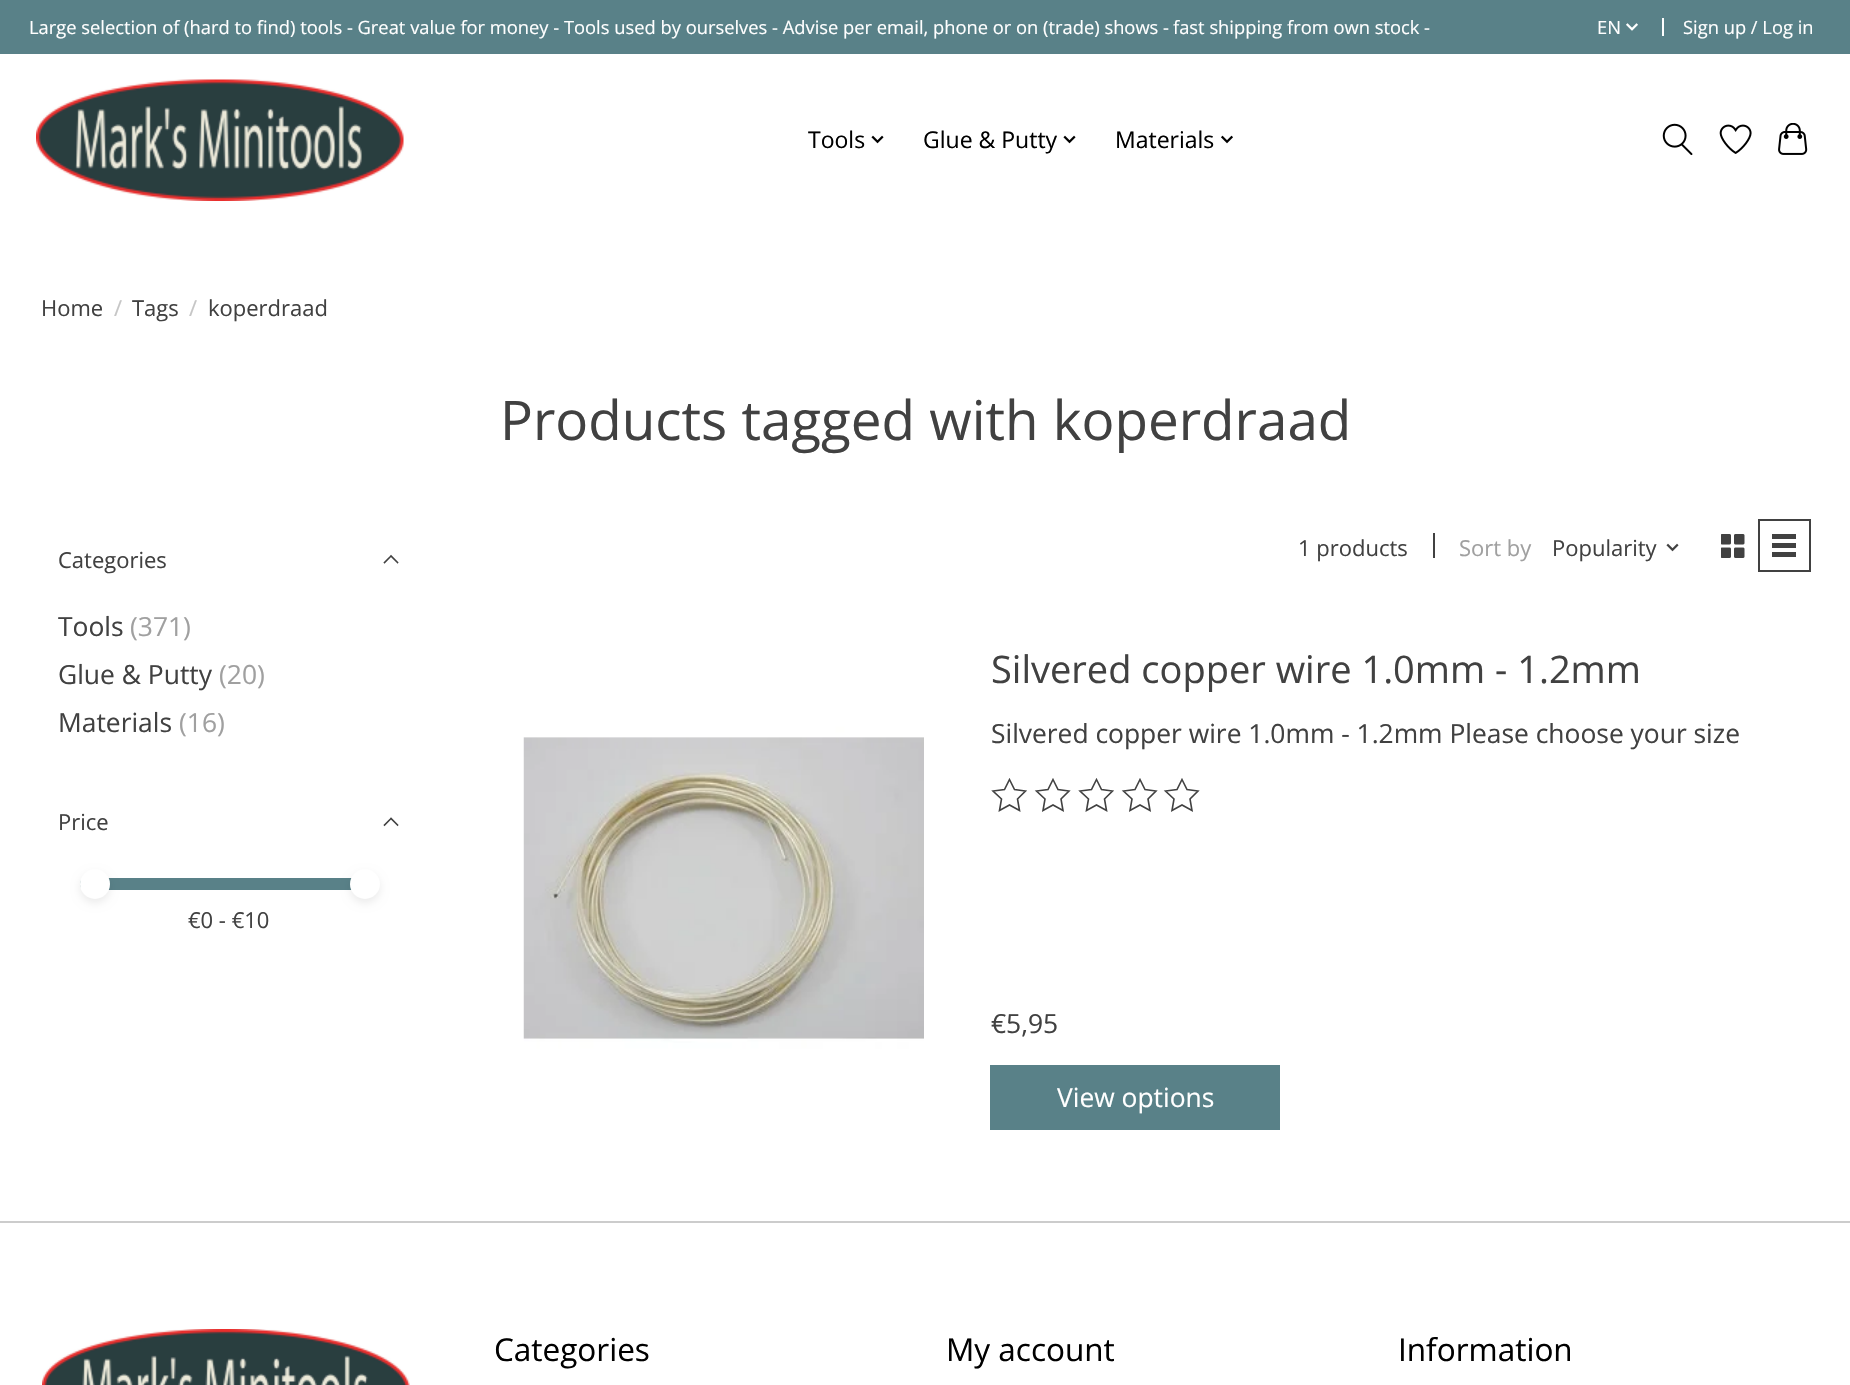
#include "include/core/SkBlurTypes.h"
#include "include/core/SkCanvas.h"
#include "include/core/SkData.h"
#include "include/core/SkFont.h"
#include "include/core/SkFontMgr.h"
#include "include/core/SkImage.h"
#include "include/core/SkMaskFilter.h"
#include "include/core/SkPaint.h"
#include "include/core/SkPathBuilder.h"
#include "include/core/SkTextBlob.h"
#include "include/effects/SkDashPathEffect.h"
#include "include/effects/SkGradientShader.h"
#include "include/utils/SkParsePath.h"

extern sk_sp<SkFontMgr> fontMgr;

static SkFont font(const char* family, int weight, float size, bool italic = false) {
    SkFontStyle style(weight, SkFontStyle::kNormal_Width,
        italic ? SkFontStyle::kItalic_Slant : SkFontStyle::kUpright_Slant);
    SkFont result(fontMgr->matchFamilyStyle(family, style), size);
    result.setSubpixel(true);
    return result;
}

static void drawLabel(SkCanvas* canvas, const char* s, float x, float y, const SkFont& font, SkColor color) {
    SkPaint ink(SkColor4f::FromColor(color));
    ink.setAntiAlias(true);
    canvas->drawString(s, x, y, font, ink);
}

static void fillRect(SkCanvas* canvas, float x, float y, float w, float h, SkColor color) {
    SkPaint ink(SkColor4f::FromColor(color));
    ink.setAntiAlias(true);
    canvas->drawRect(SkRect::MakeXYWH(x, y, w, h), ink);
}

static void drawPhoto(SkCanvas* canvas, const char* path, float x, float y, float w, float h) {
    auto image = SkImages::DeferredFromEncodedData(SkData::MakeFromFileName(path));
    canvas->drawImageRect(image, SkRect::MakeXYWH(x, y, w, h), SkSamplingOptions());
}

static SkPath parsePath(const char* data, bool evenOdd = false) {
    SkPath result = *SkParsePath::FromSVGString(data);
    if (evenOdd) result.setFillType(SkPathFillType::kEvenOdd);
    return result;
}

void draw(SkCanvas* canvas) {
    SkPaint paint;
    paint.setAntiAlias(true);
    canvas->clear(0xFFFFFFFF);
    fillRect(canvas, 0, 0, 1850, 54, 0xFF598188);
    SkFont font1 = font("Open Sans", 400, 18.33f);
    drawLabel(canvas, "Large selection of (hard to find) tools - Great value for money - Tools used by ourselves - Advise per email, phone or on (trade) shows -", 29, 34, font1, 0xFFFFFFFF);
    drawLabel(canvas, "fast shipping from own stock -", 1173, 34, font1, 0xFFFFFFFF);
    drawLabel(canvas, "EN", 1597, 34, font1, 0xFFFFFFFF);
    drawPhoto(canvas, "assets/img1.png", 1626, 23, 12, 8);
    fillRect(canvas, 1662, 18, 2, 18, 0xFFFFFFFF);
    drawLabel(canvas, "Sign up / Log in", 1683, 34, font1, 0xFFFFFFFF);
    drawPhoto(canvas, "assets/img2.png", 36, 79, 368, 122);
    SkFont font2 = font("Open Sans", 400, 23);
    drawLabel(canvas, "Tools", 808, 148, font2, 0xFF000000);
    drawPhoto(canvas, "assets/img3.png", 871, 135, 13, 9);
    drawLabel(canvas, "Glue & Putty", 923, 148, font2, 0xFF000000);
    drawPhoto(canvas, "assets/img3.png", 1063, 135, 13, 9);
    drawLabel(canvas, "Materials", 1115, 148, font2, 0xFF000000);
    drawPhoto(canvas, "assets/img4.png", 1221, 135, 12, 9);
    drawPhoto(canvas, "assets/img5.png", 1662, 123, 31, 33);
    drawPhoto(canvas, "assets/img6.png", 1719, 124, 33, 30);
    drawPhoto(canvas, "assets/img7.png", 1778, 123, 30, 32);
    SkFont font3 = font("Open Sans", 400, 22);
    drawLabel(canvas, "Home", 41, 316, font3, 0xFF414141);
    drawLabel(canvas, "/", 114, 316, font3, 0xFFC6C6C6);
    drawLabel(canvas, "Tags", 132, 316, font3, 0xFF414141);
    drawLabel(canvas, "/", 189, 316, font3, 0xFFC6C6C6);
    drawLabel(canvas, "koperdraad", 208, 316, font3, 0xFF414141);
    SkFont font4 = font("Open Sans", 400, 54.75f);
    drawLabel(canvas, "Products tagged with koperdraad", 500, 440, font4, 0xFF414141);
    drawLabel(canvas, "Categories", 58, 568, font3, 0xFF414141);
    paint.setStroke(true);
    paint.setStrokeWidth(1.6f);
    paint.setStrokeCap(SkPaint::kSquare_Cap);
    paint.setColor(0xFF414141);
    canvas->drawPath(parsePath("M384.5 562.5L391 556M397.5 562.5L391 556"), paint);
    SkFont font5 = font("Open Sans", 400, 26.4f);
    drawLabel(canvas, "Tools", 58, 636, font5, 0xFF414141);
    drawLabel(canvas, "(371)", 130, 636, font5, 0xFFA0A0A0);
    drawLabel(canvas, "Glue & Putty", 58, 684, font5, 0xFF414141);
    drawLabel(canvas, "(20)", 219, 684, font5, 0xFFA0A0A0);
    drawLabel(canvas, "Materials", 58, 732, font5, 0xFF414141);
    drawLabel(canvas, "(16)", 179, 732, font5, 0xFFA0A0A0);
    drawLabel(canvas, "Price", 58, 830, font3, 0xFF414141);
    canvas->drawPath(parsePath("M384.5 825L391 818.5M397.5 825L391 818.5"), paint);
    paint.setStroke(false);
    paint.setColor(0xFF598188);
    canvas->drawPath(parsePath("M86 878H365V890H86C82.5 890 80 887.5 80 884C80 880.5 82.5 878 86 878Z"), paint);
    paint.setColor(0x14000000);
    paint.setMaskFilter(SkMaskFilter::MakeBlur(kNormal_SkBlurStyle, 4));
    canvas->drawRoundRect(SkRect::MakeXYWH(80, 873, 30, 30), 15, 15, paint);
    paint.setMaskFilter(nullptr);
    paint.setColor(0xFFFFFFFF);
    canvas->drawCircle(95, 884, 15, paint);
    paint.setColor(0x14000000);
    paint.setMaskFilter(SkMaskFilter::MakeBlur(kNormal_SkBlurStyle, 4));
    canvas->drawRoundRect(SkRect::MakeXYWH(350, 873, 30, 30), 15, 15, paint);
    paint.setMaskFilter(nullptr);
    paint.setColor(0xFFFFFFFF);
    canvas->drawCircle(365, 884, 15, paint);
    drawLabel(canvas, "€0 - €10", 188, 928, font3, 0xFF414141);
    drawLabel(canvas, "1 products", 1298, 556, font3, 0xFF414141);
    fillRect(canvas, 1433, 533, 2, 25, 0xFF414141);
    drawLabel(canvas, "Sort by", 1459, 556, font3, 0xFFA0A0A0);
    drawLabel(canvas, "Popularity", 1552, 556, font3, 0xFF414141);
    drawPhoto(canvas, "assets/img8.png", 1666, 543, 13, 9);
    drawPhoto(canvas, "assets/img9.png", 1721, 534, 24, 24);
    paint.setStroke(true);
    paint.setStrokeWidth(2);
    paint.setStrokeCap(SkPaint::kButt_Cap);
    paint.setColor(0xFF414141);
    canvas->drawRect(SkRect::MakeXYWH(1759, 520, 51, 51), paint);
    fillRect(canvas, 1772, 534, 24, 5, 0xFF414141);
    fillRect(canvas, 1772, 543, 24, 5, 0xFF414141);
    fillRect(canvas, 1772, 552, 24, 5, 0xFF414141);
    drawPhoto(canvas, "assets/img10.png", 523, 621, 401, 534);
    SkFont font6 = font("Open Sans", 400, 38);
    drawLabel(canvas, "Silvered copper wire 1.0mm - 1.2mm", 991, 683, font6, 0xFF414141);
    drawLabel(canvas, "Silvered copper wire 1.0mm - 1.2mm Please choose your size", 991, 743, font5, 0xFF414141);
    paint.setStrokeWidth(1.6f);
    canvas->drawPath(parsePath("M1009.5 779.5L1014.5 789.5L1025.5 791L1017.5 799L1019.5 810.5L1009.5 805L999.5 810.5L1001.5 799L993 791L1004.5 789.5Z"), paint);
    canvas->drawPath(parsePath("M1053 779.5L1058 789.5L1069 791L1061 799L1063 810.5L1053 805L1043 810.5L1045 799L1036.5 791L1048 789.5Z"), paint);
    canvas->drawPath(parsePath("M1096.5 779.5L1101.5 789.5L1112.5 791L1104.5 799L1106.5 810.5L1096.5 805L1086.5 810.5L1088.5 799L1080 791L1091.5 789.5Z"), paint);
    canvas->drawPath(parsePath("M1140 779.5L1145 789.5L1156 791L1148 799L1150 810.5L1140 805L1130 810.5L1132 799L1123.5 791L1135 789.5Z"), paint);
    canvas->drawPath(parsePath("M1182 779.5L1187 789.5L1198 791L1190 799L1192 810.5L1182 805L1172 810.5L1174 799L1165.5 791L1177 789.5Z"), paint);
    drawLabel(canvas, "€5,95", 991, 1033, font5, 0xFF414141);
    fillRect(canvas, 990, 1065, 290, 65, 0xFF598188);
    drawLabel(canvas, "View options", 1057, 1107, font5, 0xFFFFFFFF);
    fillRect(canvas, 0, 1221, 1850, 2, 0xFFCCCCCC);
    drawPhoto(canvas, "assets/img11.png", 42, 1329, 368, 56);
    SkFont font7 = font("Open Sans", 400, 31.5f);
    drawLabel(canvas, "Categories", 494, 1361, font7, 0xFF000000);
    drawLabel(canvas, "My account", 946, 1361, font7, 0xFF000000);
    drawLabel(canvas, "Information", 1398, 1361, font7, 0xFF000000);
}
